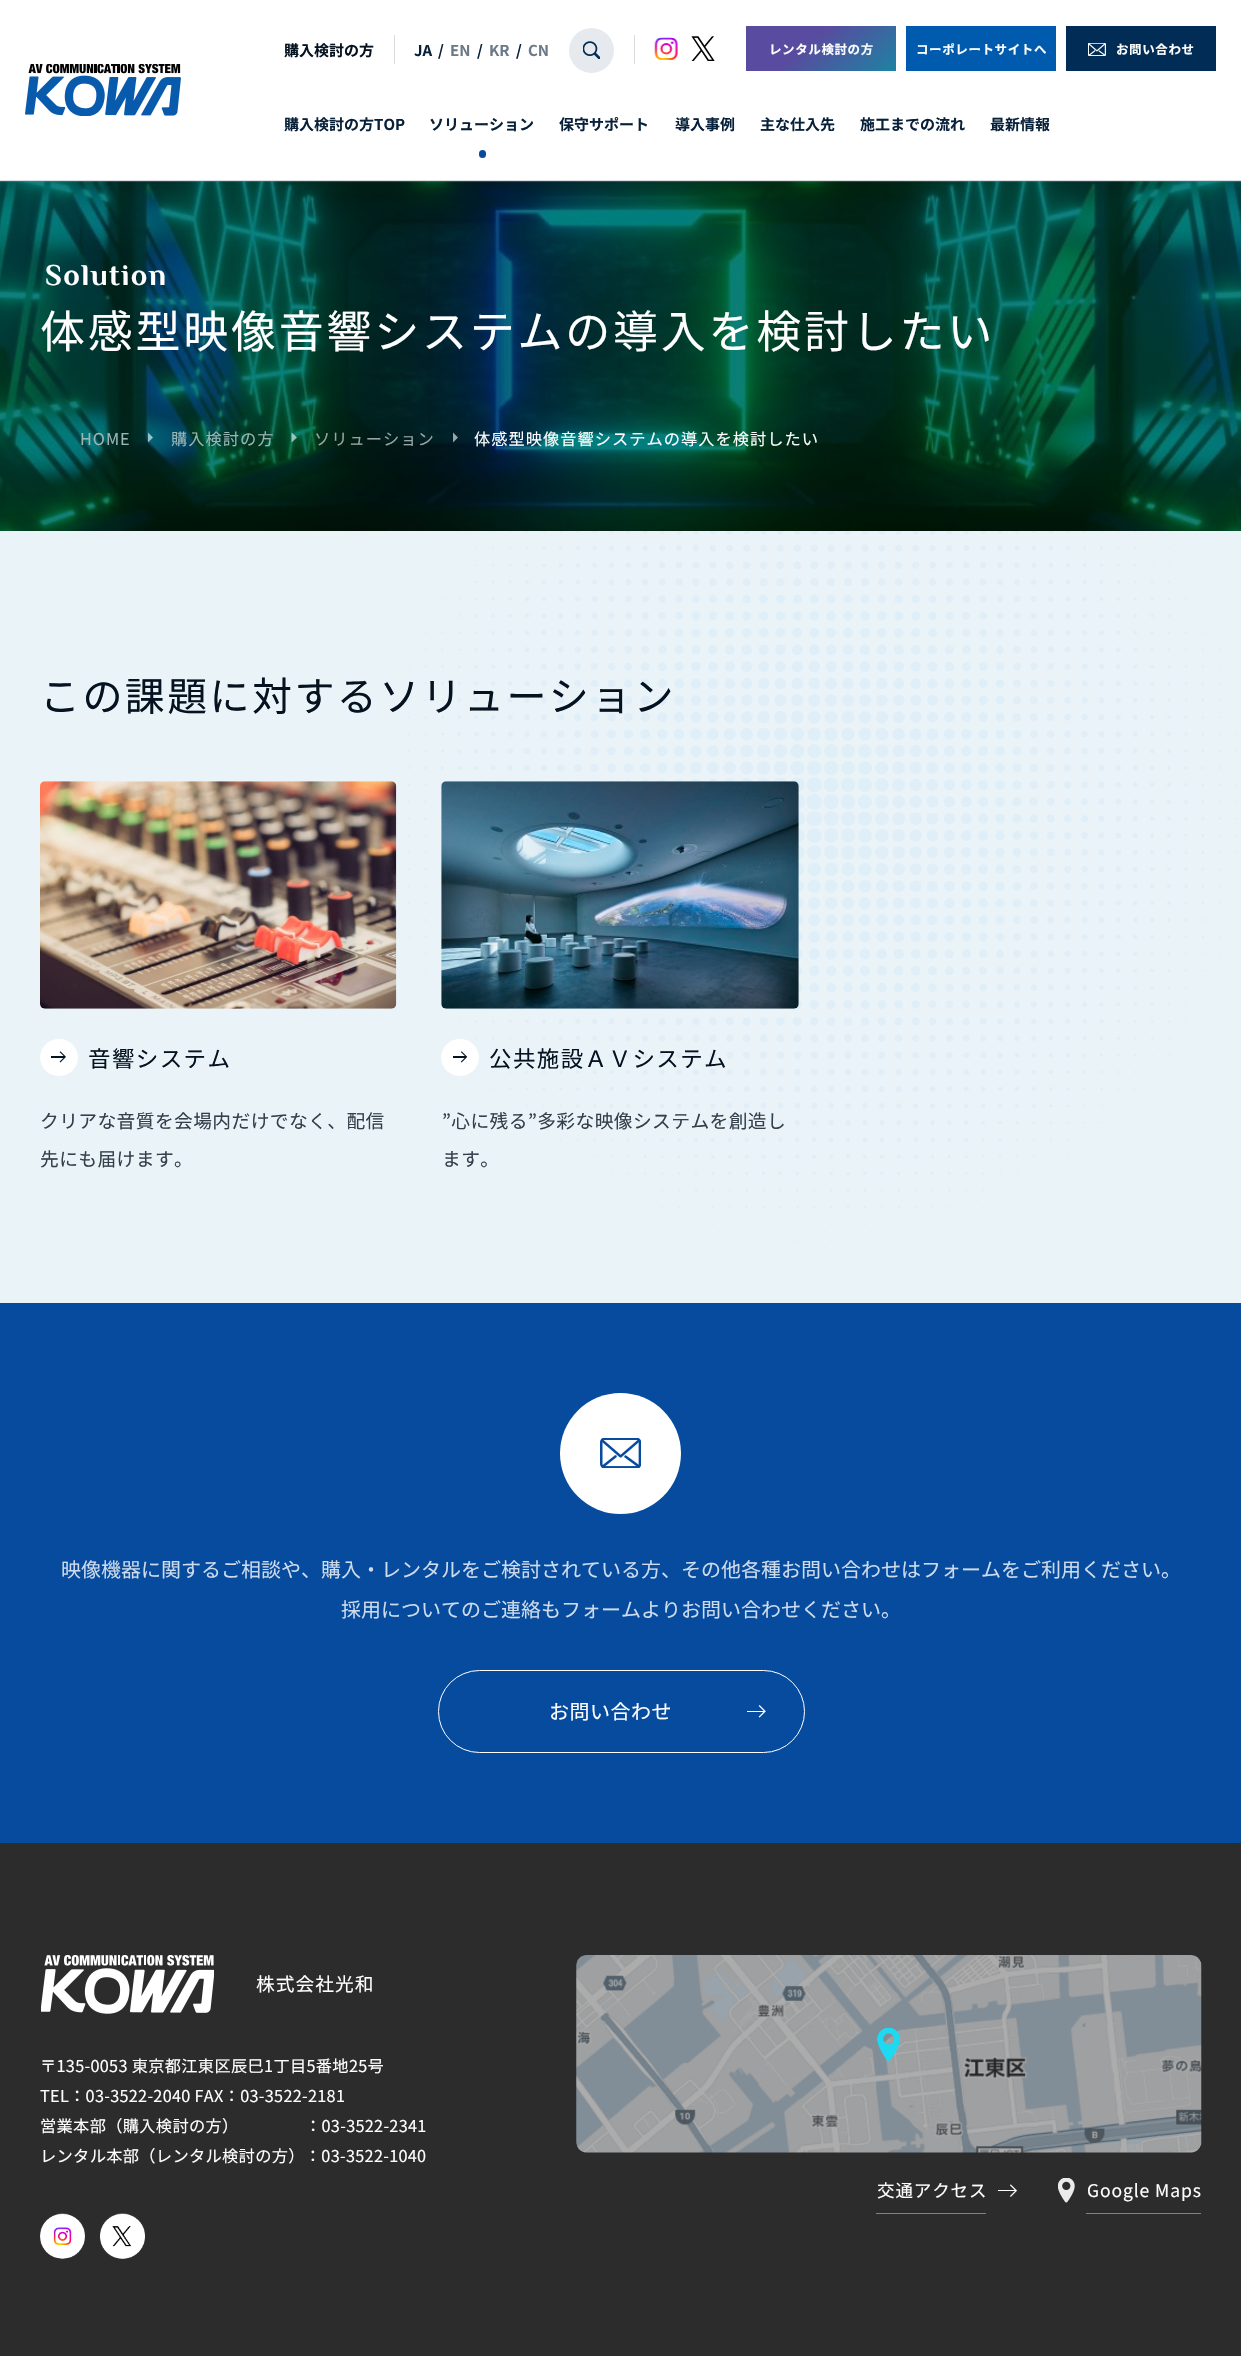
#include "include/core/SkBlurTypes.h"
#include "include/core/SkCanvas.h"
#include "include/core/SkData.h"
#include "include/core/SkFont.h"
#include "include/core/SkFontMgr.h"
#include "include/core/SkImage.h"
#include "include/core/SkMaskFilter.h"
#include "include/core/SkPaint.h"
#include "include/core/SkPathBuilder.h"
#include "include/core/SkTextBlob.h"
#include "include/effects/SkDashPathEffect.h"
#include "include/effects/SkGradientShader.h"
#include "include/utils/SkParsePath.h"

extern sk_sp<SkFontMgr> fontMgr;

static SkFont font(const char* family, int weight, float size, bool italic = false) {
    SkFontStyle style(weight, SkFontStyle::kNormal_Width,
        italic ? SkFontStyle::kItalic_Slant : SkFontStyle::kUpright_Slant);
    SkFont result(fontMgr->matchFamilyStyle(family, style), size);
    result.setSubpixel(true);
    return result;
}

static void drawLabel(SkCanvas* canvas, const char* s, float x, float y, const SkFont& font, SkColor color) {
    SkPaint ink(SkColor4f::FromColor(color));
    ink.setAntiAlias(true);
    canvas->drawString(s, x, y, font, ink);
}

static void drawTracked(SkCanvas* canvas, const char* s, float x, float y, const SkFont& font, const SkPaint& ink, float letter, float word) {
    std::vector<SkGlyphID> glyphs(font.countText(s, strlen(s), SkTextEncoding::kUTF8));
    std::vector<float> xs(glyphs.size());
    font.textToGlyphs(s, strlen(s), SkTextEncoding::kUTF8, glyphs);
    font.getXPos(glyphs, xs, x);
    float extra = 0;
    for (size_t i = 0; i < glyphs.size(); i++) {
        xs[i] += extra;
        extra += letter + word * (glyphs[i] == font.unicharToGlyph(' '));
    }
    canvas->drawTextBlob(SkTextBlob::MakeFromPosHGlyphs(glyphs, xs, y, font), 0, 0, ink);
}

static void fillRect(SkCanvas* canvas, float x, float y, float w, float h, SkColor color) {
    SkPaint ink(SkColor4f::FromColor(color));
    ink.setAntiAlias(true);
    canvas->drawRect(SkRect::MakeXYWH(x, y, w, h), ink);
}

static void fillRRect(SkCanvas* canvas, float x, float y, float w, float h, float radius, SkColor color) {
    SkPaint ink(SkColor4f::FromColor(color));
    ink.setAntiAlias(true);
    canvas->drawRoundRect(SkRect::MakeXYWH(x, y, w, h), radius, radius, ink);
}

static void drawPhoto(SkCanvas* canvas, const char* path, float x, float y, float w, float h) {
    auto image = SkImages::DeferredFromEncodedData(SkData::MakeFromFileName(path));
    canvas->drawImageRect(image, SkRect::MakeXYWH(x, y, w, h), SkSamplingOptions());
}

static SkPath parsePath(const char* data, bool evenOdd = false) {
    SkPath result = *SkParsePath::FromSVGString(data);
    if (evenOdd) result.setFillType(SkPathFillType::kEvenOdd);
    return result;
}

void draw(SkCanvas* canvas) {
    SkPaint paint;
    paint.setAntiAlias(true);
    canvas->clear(0xFFFFFFFF);
    fillRect(canvas, 0, 181, 1241, 1, 0xFF808080);
    fillRect(canvas, 0, 180, 1241, 1, 0xFFDADBDE);
    drawPhoto(canvas, "assets/img1.png", 25, 64, 156, 52);
    SkFont font1 = font("Noto Sans JP", 700, 15);
    drawLabel(canvas, "購入検討の方", 284, 56, font1, 0xFF051220);
    fillRect(canvas, 394, 35, 1, 29, 0xFFDADBDE);
    drawLabel(canvas, "JA", 414, 56, font1, 0xFF08213B);
    drawLabel(canvas, "/", 438, 56, font1, 0xFF08213B);
    drawLabel(canvas, "EN", 450, 56, font1, 0xFF6B7A89);
    drawLabel(canvas, "/", 477, 56, font1, 0xFF08213B);
    drawLabel(canvas, "KR", 489, 56, font1, 0xFF6B7A89);
    drawLabel(canvas, "/", 516, 56, font1, 0xFF08213B);
    drawLabel(canvas, "CN", 528, 56, font1, 0xFF6B7A89);
    paint.setColor(0xFFE6EAEE);
    canvas->drawCircle(591.5f, 50.5f, 22.5f, paint);
    drawPhoto(canvas, "assets/img2.png", 583, 41, 17, 18);
    fillRect(canvas, 634, 35, 1, 29, 0xFFDADBDE);
    drawPhoto(canvas, "assets/img3.png", 654, 37, 24, 23);
    drawPhoto(canvas, "assets/img4.png", 691, 36, 24, 25);
    {
        const SkColor colors[] = {0xFF594B9F, 0xFF1D83A2};
        const float stops[] = {0.4f, 1};
        const SkPoint ends[] = {{779, -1.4f}, {863, 99}};
        paint.setShader(SkGradientShader::MakeLinear(ends, colors, stops, 2, SkTileMode::kClamp));
        paint.setAlpha(255);
    }
    canvas->drawRect(SkRect::MakeXYWH(746, 26, 150, 45), paint);
    SkFont font2 = font("Noto Sans JP", 700, 12.5f);
    paint.setShader(nullptr);
    paint.setColor(0xFFFFFFFF);
    drawTracked(canvas, "レンタル検討の方", 769, 54, font2, paint, 0.6f, 0);
    fillRect(canvas, 906, 26, 150, 45, 0xFF005BAE);
    drawTracked(canvas, "コーポレートサイトへ", 916, 54, font2, paint, 0.6f, 0);
    fillRect(canvas, 1066, 26, 150, 45, 0xFF002C56);
    drawPhoto(canvas, "assets/img5.png", 1088, 43, 18, 13);
    drawTracked(canvas, "お問い合わせ", 1116, 54, font2, paint, 0.6f, 0);
    drawLabel(canvas, "購入検討の方TOP", 284, 130, font1, 0xFF08213B);
    drawLabel(canvas, "ソリューション", 429, 130, font1, 0xFF08213B);
    fillRRect(canvas, 479, 150, 7, 8, 3.5f, 0xFF064B9E);
    drawLabel(canvas, "保守サポート", 559, 130, font1, 0xFF08213B);
    drawLabel(canvas, "導入事例", 675, 130, font1, 0xFF08213B);
    drawLabel(canvas, "主な仕入先", 760, 130, font1, 0xFF08213B);
    drawLabel(canvas, "施工までの流れ", 860, 130, font1, 0xFF08213B);
    drawLabel(canvas, "最新情報", 990, 130, font1, 0xFF08213B);
    drawPhoto(canvas, "assets/img6.png", 0, 181, 1241, 350);
    SkFont font3 = font("Philosopher", 700, 30);
    drawTracked(canvas, "Solution", 45, 285, font3, paint, 1.5f, 0);
    SkFont font4 = font("Noto Sans JP", 400, 45);
    drawTracked(canvas, "体感型映像音響システムの導入を検討したい", 40, 348, font4, paint, 2.75f, 0);
    SkFont font5 = font("Noto Sans JP", 400, 16.25f);
    paint.setColor(0xFF9AB6B5);
    drawTracked(canvas, "HOME", 80, 445, font5, paint, 1, 0);
    paint.setColor(0x99FFFFFF);
    canvas->drawPath(parsePath("M148 442.5L153 437.5L148 432.5Z"), paint);
    paint.setColor(0xFF9AB6B5);
    drawTracked(canvas, "購入検討の方", 171, 445, font5, paint, 1, 0);
    paint.setColor(0x99FFFFFF);
    canvas->drawPath(parsePath("M291.5 442.5L297 437.5L291.5 432.5Z"), paint);
    paint.setColor(0xFF99A5A3);
    drawTracked(canvas, "ソリューション", 314, 445, font5, paint, 1, 0);
    paint.setColor(0x99FFFFFF);
    canvas->drawPath(parsePath("M453 442.5L458 437.5L453 432.5Z"), paint);
    paint.setColor(0xFFFFFFFF);
    drawTracked(canvas, "体感型映像音響システムの導入を検討したい", 474, 445, font5, paint, 1, 0);
    fillRect(canvas, 0, 531, 1241, 772, 0xFFEAF3F8);
    drawPhoto(canvas, "assets/img7.png", 374, 531, 864, 711);
    SkFont font6 = font("Noto Sans JP", 400, 40);
    paint.setColor(0xFF051220);
    drawTracked(canvas, "この課題に対するソリューション", 40, 711, font6, paint, 2.4f, 0);
    drawPhoto(canvas, "assets/img8.png", 40, 781, 357, 228);
    fillRRect(canvas, 40, 1039, 38, 37, 18.5f, 0xFFFFFFFF);
    drawPhoto(canvas, "assets/img9.png", 51, 1051, 15, 12);
    SkFont font7 = font("Noto Sans JP", 400, 22.5f);
    drawTracked(canvas, "音響システム", 88, 1067, font7, paint, 1.4f, 0);
    SkFont font8 = font("Noto Sans JP", 400, 18.75f);
    paint.setColor(0xFF333F4B);
    drawTracked(canvas, "クリアな音質を会場内だけでなく、配信", 40, 1128, font8, paint, 0.4f, 0);
    drawTracked(canvas, "先にも届けます。", 40, 1166, font8, paint, 0.4f, 0);
    drawPhoto(canvas, "assets/img10.png", 441, 781, 358, 228);
    fillRRect(canvas, 441, 1039, 38, 37, 18.5f, 0xFFFFFFFF);
    drawPhoto(canvas, "assets/img11.png", 453, 1051, 15, 12);
    paint.setColor(0xFF051220);
    drawTracked(canvas, "公共施設ＡＶシステム", 489, 1067, font7, paint, 1.4f, 0);
    paint.setColor(0xFF333F4B);
    drawTracked(canvas, "”心に残る”多彩な映像システムを創造し", 442, 1128, font8, paint, 0.4f, 0);
    drawTracked(canvas, "ます。", 442, 1166, font8, paint, 0.4f, 0);
    fillRect(canvas, 0, 1303, 1241, 540, 0xFF064B9E);
    paint.setColor(0xFFFFFFFF);
    canvas->drawCircle(620.5f, 1453.5f, 60.5f, paint);
    drawPhoto(canvas, "assets/img12.png", 600, 1438, 41, 30);
    SkFont font9 = font("Noto Sans JP", 400, 20);
    drawLabel(canvas, "映像機器に関するご相談や、購入・レンタルをご検討されている方、その他各種お問い合わせはフォームをご利用ください。", 61, 1577, font9, 0xFFCDDBEC);
    drawLabel(canvas, "採用についてのご連絡もフォームよりお問い合わせください。", 341, 1617, font9, 0xFFCDDBEC);
    paint.setStroke(true);
    paint.setStrokeWidth(1);
    canvas->drawRoundRect(SkRect::MakeXYWH(438.5f, 1670.5f, 366, 82), 41, 41, paint);
    paint.setStroke(false);
    drawTracked(canvas, "お問い合わせ", 549, 1719, font9, paint, 0.5f, 0);
    drawPhoto(canvas, "assets/img13.png", 747, 1705, 19, 13);
    fillRect(canvas, 0, 1843, 1241, 513, 0xFF2C2C2C);
    drawPhoto(canvas, "assets/img14.png", 41, 1955, 173, 59);
    drawTracked(canvas, "株式会社光和", 256, 1991, font8, paint, 1, 0);
    drawTracked(canvas, "〒135-0053 東京都江東区⾠⺒1丁⽬5番地25号", 40, 2072, font5, paint, 0.3f, 0);
    drawTracked(canvas, "TEL：03-3522-2040 FAX：03-3522-2181", 40, 2102, font5, paint, 0.3f, 0);
    drawTracked(canvas, "営業本部（購入検討の方）", 40, 2132, font5, paint, 0.3f, 0);
    drawTracked(canvas, "：03-3522-2341", 305, 2132, font5, paint, 0.3f, 0);
    drawTracked(canvas, "レンタル本部（レンタル検討の方）：03-3522-1040", 40, 2162, font5, paint, 0.3f, 0);
    drawPhoto(canvas, "assets/img15.png", 40, 2213, 45, 46);
    drawPhoto(canvas, "assets/img16.png", 100, 2213, 45, 46);
    drawPhoto(canvas, "assets/img17.png", 576, 1955, 626, 198);
    SkFont font10 = font("Noto Sans JP", 400, 17.5f);
    drawTracked(canvas, "交通アクセス", 877, 2197, font10, paint, 0.9f, 0);
    drawPhoto(canvas, "assets/img18.png", 998, 2184, 19, 13);
    fillRect(canvas, 876, 2213, 110, 1, 0xFF838383);
    drawPhoto(canvas, "assets/img19.png", 1058, 2178, 17, 25);
    drawTracked(canvas, "Google Maps", 1087, 2197, font10, paint, 0.9f, 0);
    fillRect(canvas, 1086, 2213, 115, 1, 0xFF838383);
}
